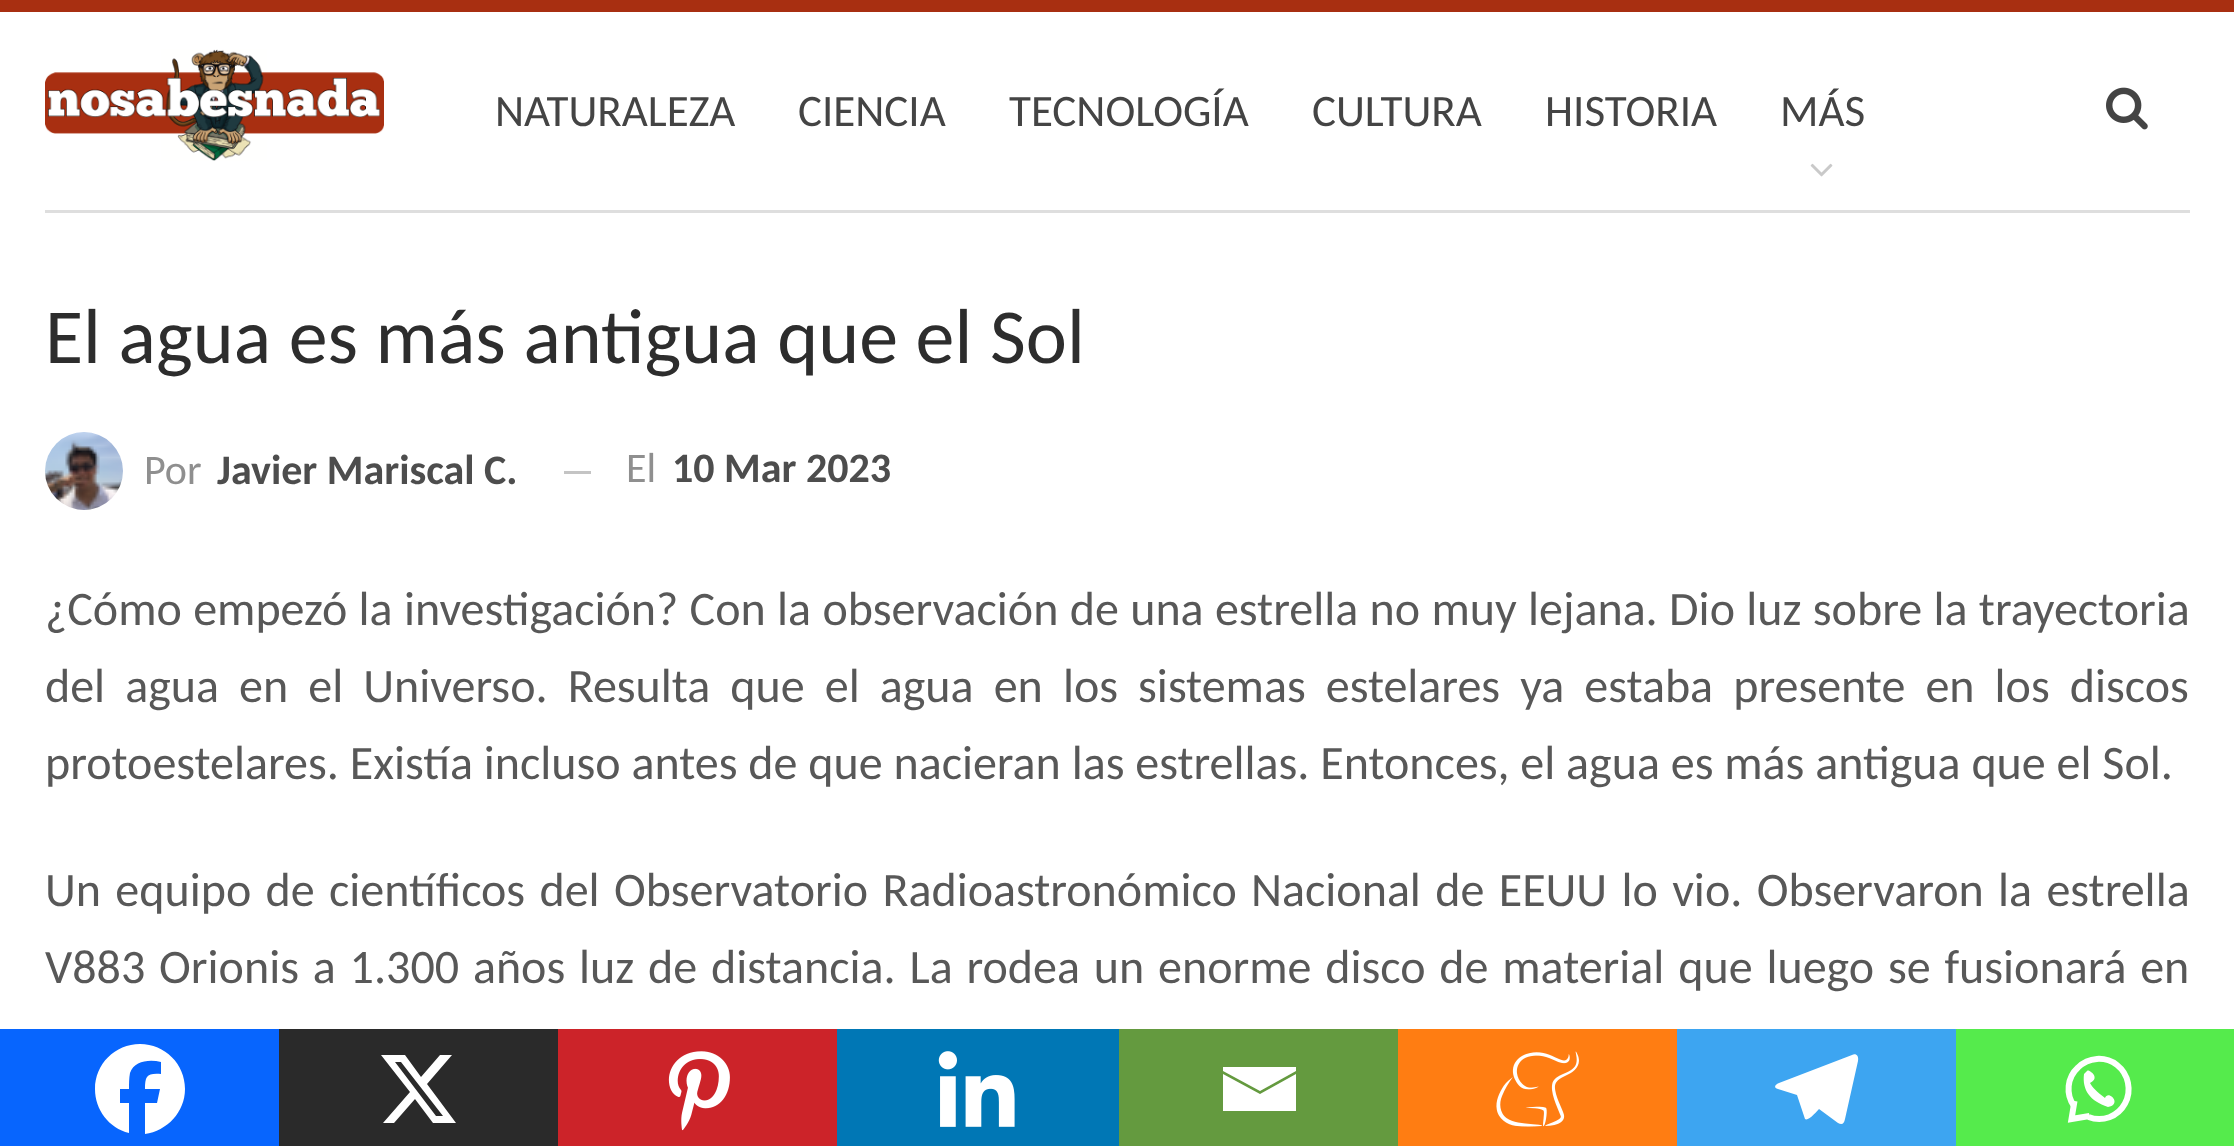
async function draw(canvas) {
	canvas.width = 2234;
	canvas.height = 1146;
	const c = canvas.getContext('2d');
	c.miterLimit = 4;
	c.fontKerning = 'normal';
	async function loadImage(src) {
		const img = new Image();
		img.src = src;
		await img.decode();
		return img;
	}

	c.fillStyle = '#a82f11';
	c.fillRect(0, 0, 2234, 1146);
	c.fillStyle = '#fff';
	c.fillRect(0, 12, 2234, 1017);
	c.fillStyle = '#dedede';
	c.fillRect(45, 210, 2145, 3);
	c.drawImage(await loadImage('img1.png'), 45, 49, 339, 112);
	c.font = '45px Carlito';
	c.fillStyle = '#444';
	for (const [text, x, y] of [
		['NATURALEZA', 495, 126],
		['CIENCIA', 798, 126],
		['TECNOLOGÍA', 1009, 126],
		['CULTURA', 1312, 126],
		['HISTORIA', 1545, 126],
		['MÁS', 1780, 126],
	]) {
		c.fillText(text, x, y);
	}
	c.drawImage(await loadImage('img2.png'), 1810, 163, 23, 14);
	c.drawImage(await loadImage('img3.png'), 2106, 87, 42, 43);
	c.font = '78px Carlito';
	c.fillStyle = '#2d2d2d';
	c.fillText('El agua es más antigua que el Sol', 45, 363);
	c.drawImage(await loadImage('img4.png'), 45, 432, 78, 78);
	c.font = '42px Carlito';
	c.fillStyle = '#8f8f8f';
	c.fillText('Por', 144, 484);
	c.font = 'bold 42px Carlito';
	c.fillStyle = '#4d4d4d';
	c.fillText('Javier Mariscal C.', 217, 484);
	c.fillStyle = '#c4c4c4';
	c.fillRect(564, 471, 27, 3);
	c.font = '42px Carlito';
	c.fillStyle = '#8f8f8f';
	c.fillText('El', 626, 482);
	c.font = 'bold 42px Carlito';
	c.fillStyle = '#4d4d4d';
	c.fillText('10 Mar 2023', 672, 482);
	c.wordSpacing = '0.5px';
	c.font = '48px Carlito';
	c.fillStyle = '#585858';
	c.fillText('¿Cómo empezó la investigación? Con la observación de una estrella no muy lejana. Dio luz sobre la trayectoria', 45, 625);
	c.wordSpacing = '9.25px';
	c.fillText('del agua en el Universo. Resulta que el agua en los sistemas estelares ya estaba presente en los discos', 45, 702);
	c.wordSpacing = '0px';
	c.fillText('protoestelares. Existía incluso antes de que nacieran las estrellas. Entonces, el agua es más antigua que el Sol.', 45, 779);
	c.wordSpacing = '3.5px';
	c.fillText('Un equipo de científicos del Observatorio Radioastronómico Nacional de EEUU lo vio. Observaron la estrella', 45, 906);
	c.wordSpacing = '3px';
	c.fillText('V883 Orionis a 1.300 años luz de distancia. La rodea un enorme disco de material que luego se fusionará en', 45, 983);
	c.fillStyle = '#0765fe';
	c.fillRect(0, 1029, 279, 117);
	c.fillStyle = '#fff';
	c.beginPath();
	c.moveTo(185, 1089);
	c.bezierCurveTo(185, 1064, 165, 1044, 140, 1044);
	c.bezierCurveTo(115, 1044, 95, 1064, 95, 1089);
	c.bezierCurveTo(95, 1110, 109, 1128, 129, 1133);
	c.lineTo(129, 1103);
	c.lineTo(120, 1103);
	c.lineTo(120, 1089);
	c.lineTo(129, 1089);
	c.bezierCurveTo(129, 1084, 129, 1078, 130, 1073);
	c.bezierCurveTo(134, 1061, 149, 1059, 161, 1062);
	c.lineTo(161, 1074);
	c.bezierCurveTo(147, 1073, 145, 1076, 145, 1089);
	c.lineTo(160, 1089);
	c.lineTo(157, 1103);
	c.lineTo(145, 1103);
	c.lineTo(145, 1134);
	c.bezierCurveTo(167, 1131, 185, 1112, 185, 1089);
	c.closePath();
	c.fill();
	c.fillStyle = '#2a2a2a';
	c.fillRect(279, 1029, 279, 117);
	c.fillStyle = '#fff';
	c.beginPath();
	c.moveTo(440, 1055);
	c.lineTo(452, 1055);
	c.lineTo(427, 1084);
	c.lineTo(456, 1123);
	c.lineTo(433, 1123);
	c.lineTo(415, 1099);
	c.lineTo(394, 1123);
	c.lineTo(383, 1123);
	c.lineTo(410, 1092);
	c.lineTo(381, 1055);
	c.lineTo(405, 1055);
	c.lineTo(421, 1077);
	c.closePath();
	c.moveTo(436, 1116);
	c.lineTo(443, 1116);
	c.lineTo(401, 1062);
	c.lineTo(395, 1062);
	c.closePath();
	c.fill();
	c.fillStyle = '#cc2329';
	c.fillRect(558, 1029, 279, 117);
	c.drawImage(await loadImage('img5.png'), 668, 1051, 62, 80);
	c.fillStyle = '#0077b5';
	c.fillRect(837, 1029, 282, 117);
	c.drawImage(await loadImage('img6.png'), 938, 1051, 77, 76);
	c.fillStyle = '#649a3f';
	c.fillRect(1119, 1029, 279, 117);
	c.fillStyle = '#fff';
	c.beginPath();
	c.moveTo(1220, 1067);
	c.lineTo(1296, 1067);
	c.lineTo(1296, 1071);
	c.lineTo(1260, 1091);
	c.lineTo(1223, 1071);
	c.lineTo(1223, 1067);
	c.moveTo(1223, 1074);
	c.lineTo(1260, 1094);
	c.lineTo(1296, 1074);
	c.lineTo(1296, 1111);
	c.lineTo(1223, 1111);
	c.lineTo(1223, 1074);
	c.fill();
	c.fillStyle = '#ff7d12';
	c.fillRect(1398, 1029, 279, 117);
	c.drawImage(await loadImage('img7.png'), 1496, 1051, 83, 76);
	c.fillStyle = '#3da5f1';
	c.fillRect(1677, 1029, 279, 117);
	c.fillStyle = '#fff';
	c.beginPath();
	c.moveTo(1852, 1055);
	c.lineTo(1779, 1083);
	c.bezierCurveTo(1774, 1085, 1774, 1088, 1778, 1089);
	c.lineTo(1797, 1095);
	c.lineTo(1805, 1119);
	c.bezierCurveTo(1808, 1122, 1818, 1110, 1819, 1109);
	c.lineTo(1838, 1123);
	c.bezierCurveTo(1842, 1125, 1844, 1124, 1845, 1119);
	c.lineTo(1858, 1061);
	c.bezierCurveTo(1859, 1056, 1856, 1053, 1852, 1055);
	c.closePath();
	c.fill();
	c.fillStyle = '#55eb4c';
	c.fillRect(1956, 1029, 278, 117);
	c.beginPath();
	c.moveTo(2088.5, 1117);
	c.bezierCurveTo(2102.5, 1122.5, 2118, 1116.5, 2125, 1103.5);
	c.bezierCurveTo(2132, 1090.5, 2128.5, 1074, 2117, 1065);
	c.bezierCurveTo(2105, 1056, 2088.5, 1057, 2078, 1067.5);
	c.bezierCurveTo(2067, 1077.5, 2065.5, 1094, 2074, 1106);
	c.strokeStyle = '#fff';
	c.lineWidth = 6;
	c.stroke();
	c.beginPath();
	c.moveTo(2074.5, 1101);
	c.lineTo(2071.5, 1119);
	c.lineTo(2089.5, 1116);
	c.stroke();
	c.fillStyle = '#fff';
	c.beginPath();
	c.moveTo(2084, 1074);
	c.bezierCurveTo(2082, 1090, 2090, 1101, 2108, 1107);
	c.bezierCurveTo(2123, 1104, 2108, 1089, 2105, 1098);
	c.bezierCurveTo(2097, 1092, 2092, 1087, 2090, 1083);
	c.bezierCurveTo(2102, 1077, 2087, 1068, 2087, 1071);
	c.fill();
}

draw(document.querySelector('canvas'));
